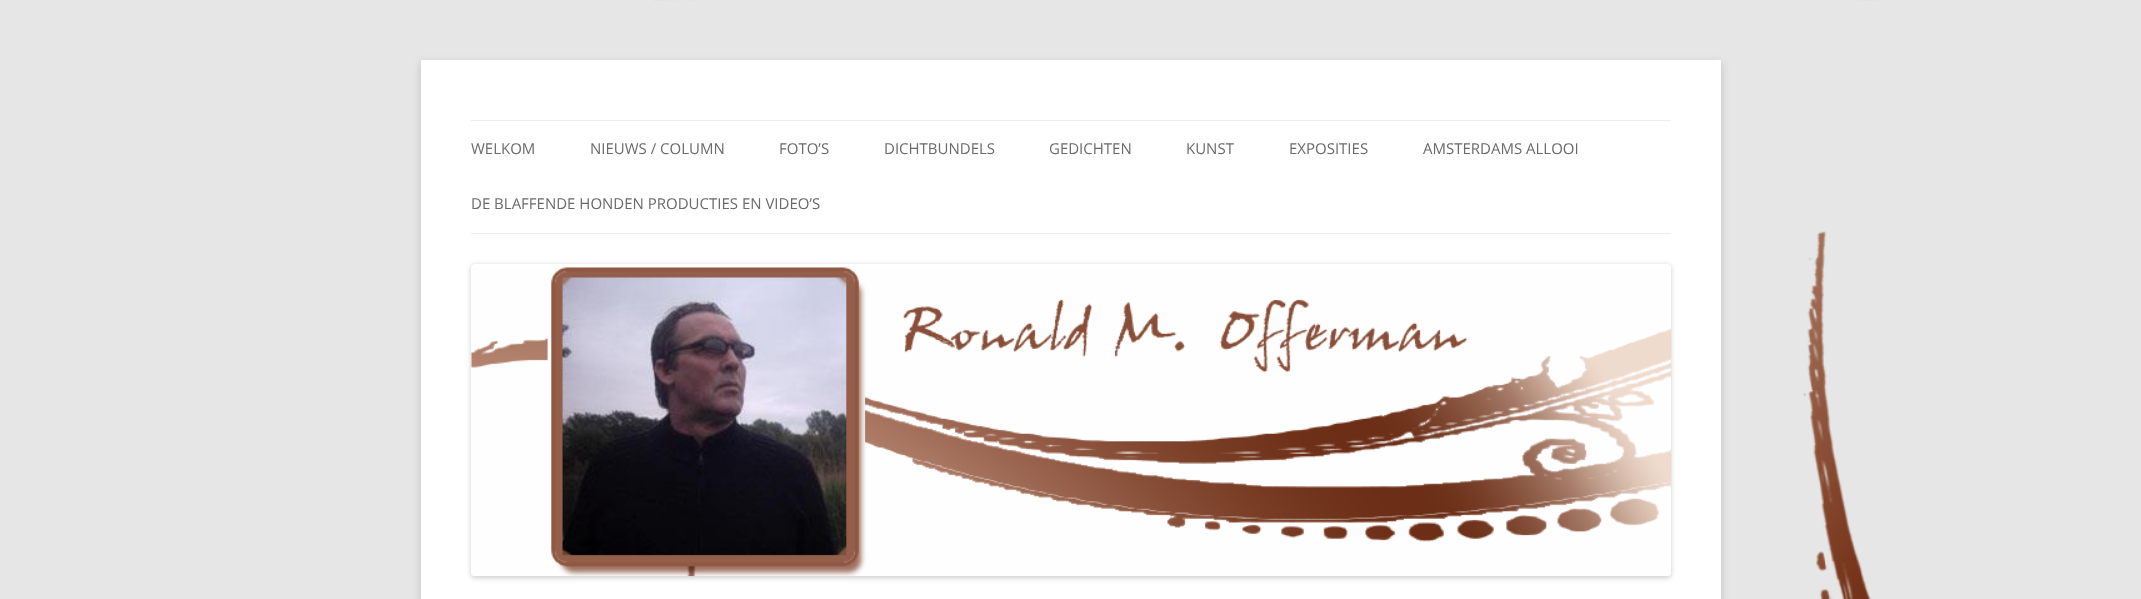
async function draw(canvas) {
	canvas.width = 2141;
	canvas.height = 599;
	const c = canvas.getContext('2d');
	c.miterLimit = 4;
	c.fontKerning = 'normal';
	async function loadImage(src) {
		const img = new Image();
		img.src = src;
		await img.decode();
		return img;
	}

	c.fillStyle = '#e6e6e6';
	c.fillRect(0, 0, 2141, 599);
	c.drawImage(await loadImage('img1.png'), 653, 0, 1258, 599);
	c.fillStyle = '#6464644d';
	c.filter = 'blur(4px)';
	c.beginPath();
	c.rect(421, 63, 1300, 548);
	c.fill();
	c.filter = 'none';
	for (const [x, y, w, h, color] of [
		[421, 60, 1300, 539, '#fff'],
		[471, 120, 1200, 1, '#ededed'],
		[471, 233, 1200, 1, '#ededed'],
	]) {
		c.fillStyle = color;
		c.fillRect(x, y, w, h);
	}
	c.font = '15px Open Sans';
	c.fillStyle = '#6a6a6a';
	for (const [text, x, y] of [
		['WELKOM', 471, 154],
		['NIEUWS / COLUMN', 590, 154],
		['FOTO’S', 779, 154],
		['DICHTBUNDELS', 884, 154],
		['GEDICHTEN', 1049, 154],
		['KUNST', 1186, 154],
		['EXPOSITIES', 1289, 154],
		['AMSTERDAMS ALLOOI', 1423, 154],
		['DE BLAFFENDE HONDEN PRODUCTIES EN VIDEO’S', 471, 209],
	]) {
		c.fillText(text, x, y);
	}
	c.save();
	c.beginPath();
	c.moveTo(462, 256);
	c.lineTo(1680, 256);
	c.lineTo(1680, 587);
	c.lineTo(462, 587);
	c.closePath();
	c.moveTo(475, 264);
	c.lineTo(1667, 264);
	c.bezierCurveTo(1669, 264, 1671, 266, 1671, 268);
	c.lineTo(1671, 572);
	c.bezierCurveTo(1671, 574, 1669, 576, 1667, 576);
	c.lineTo(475, 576);
	c.bezierCurveTo(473, 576, 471, 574, 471, 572);
	c.lineTo(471, 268);
	c.bezierCurveTo(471, 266, 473, 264, 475, 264);
	c.closePath();
	c.clip('evenodd');
	c.fillStyle = '#00000033';
	c.filter = 'blur(2.5px)';
	c.beginPath();
	c.roundRect(471, 265, 1200, 313, 4);
	c.fill();
	c.filter = 'none';
	c.restore();
	c.drawImage(await loadImage('img2.png'), 471, 267, 1200, 310);
}

draw(document.querySelector('canvas'));
